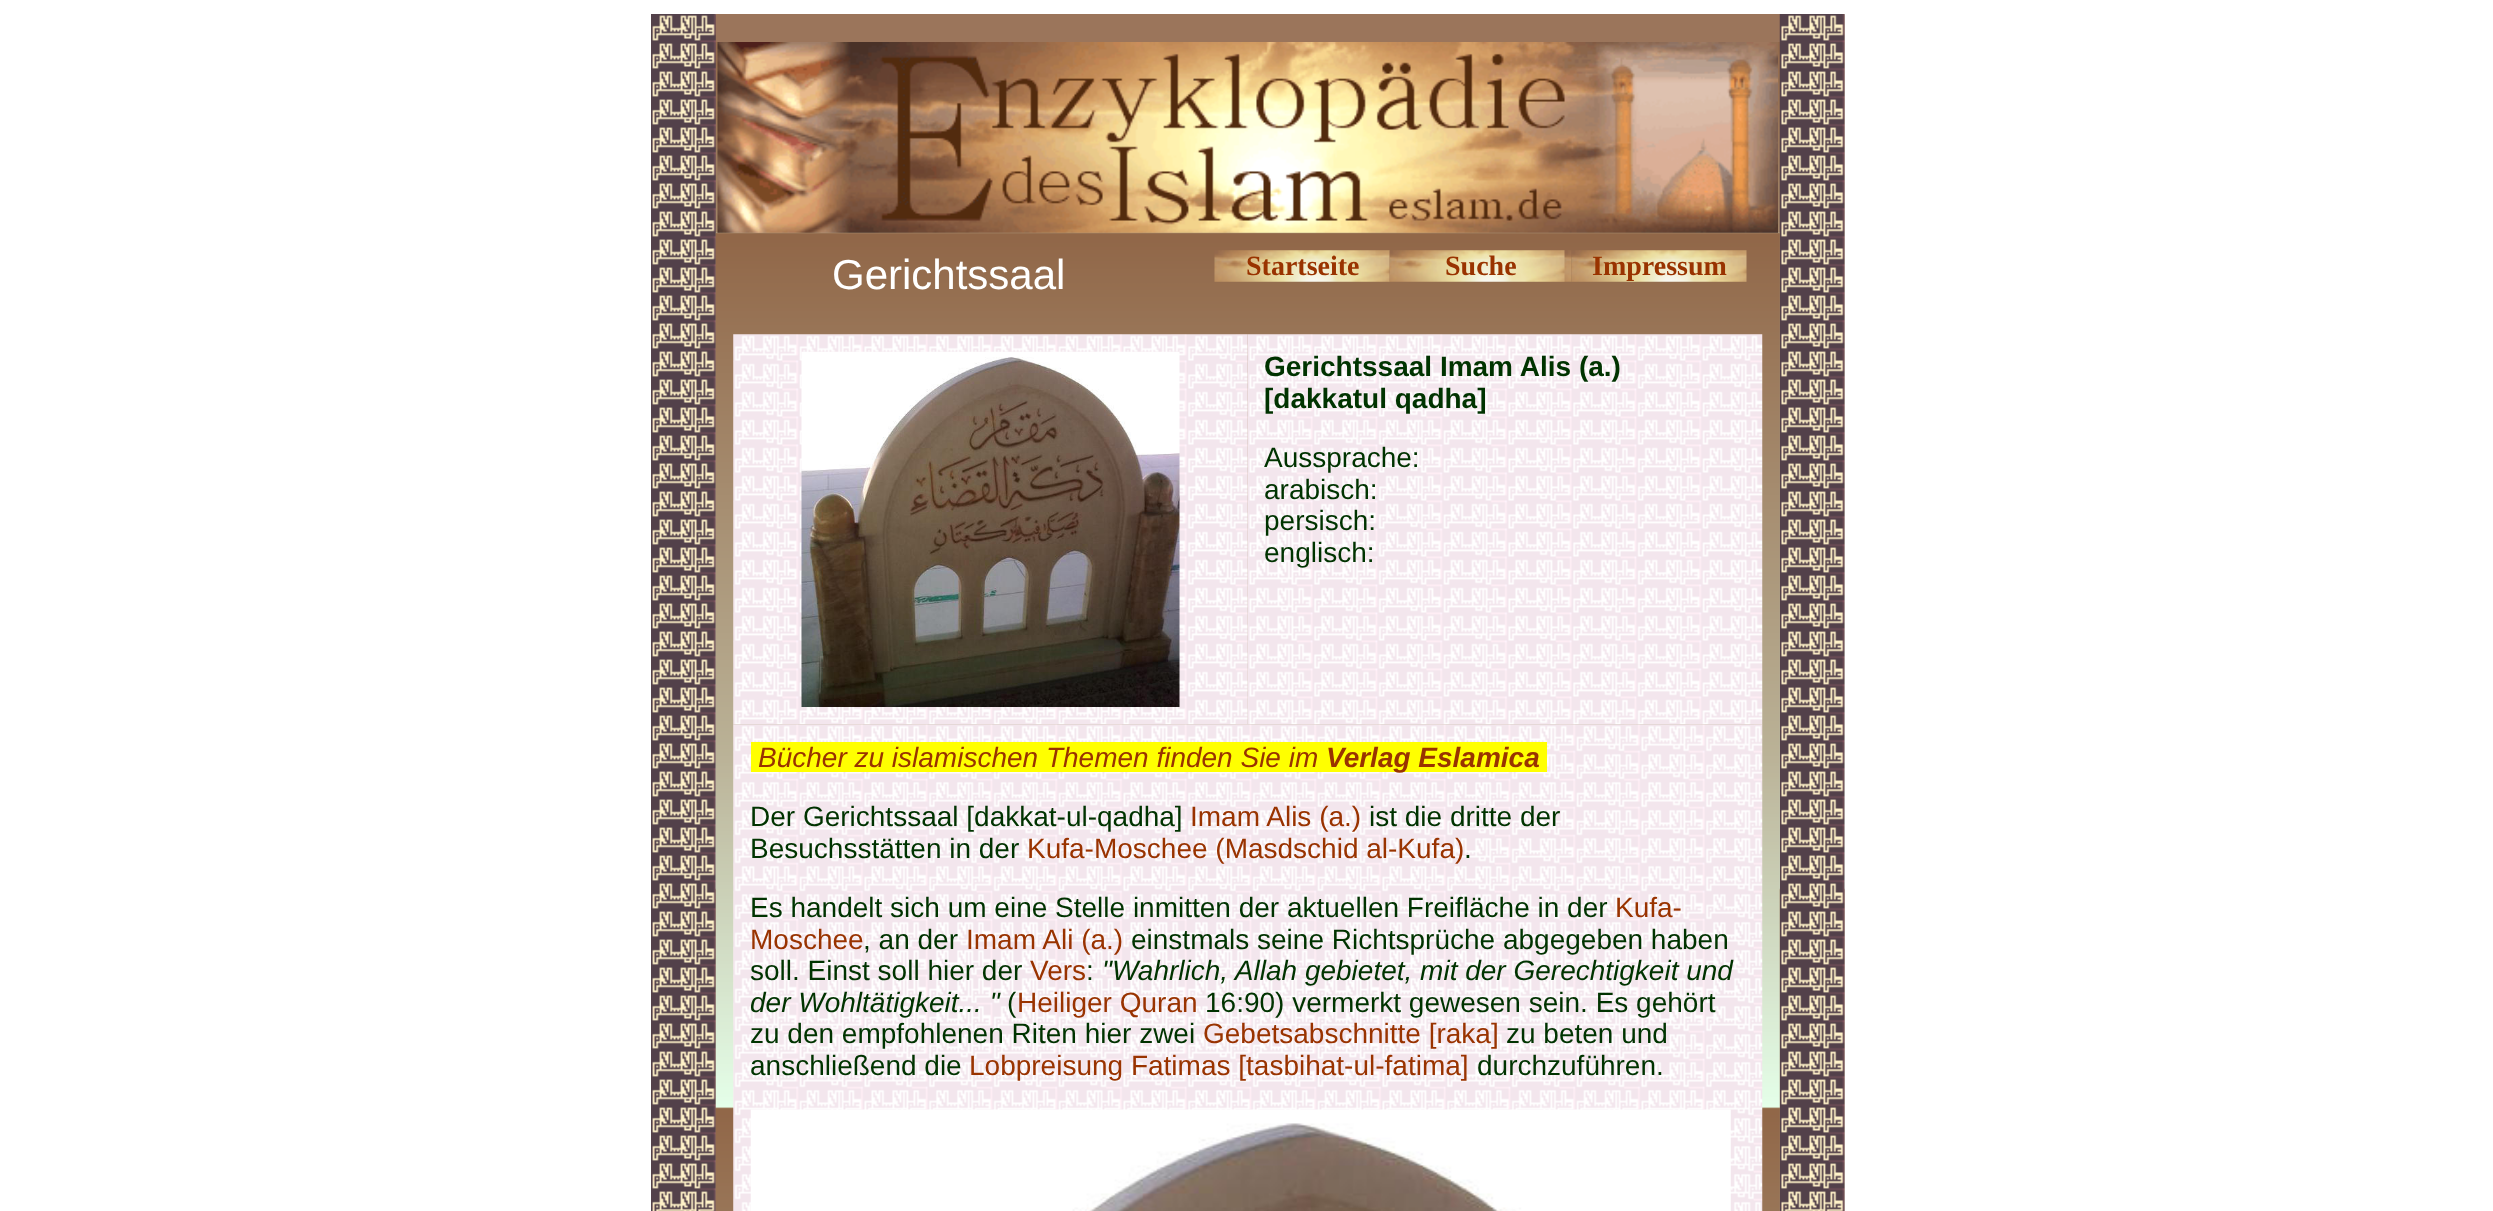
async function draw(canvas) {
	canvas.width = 2493;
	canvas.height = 1211;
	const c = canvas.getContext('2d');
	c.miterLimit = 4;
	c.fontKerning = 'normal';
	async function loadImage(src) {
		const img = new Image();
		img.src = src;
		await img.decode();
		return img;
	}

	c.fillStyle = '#fff';
	c.fillRect(0, 0, 2493, 1211);
	c.drawImage(await loadImage('img1.png'), 715, 14, 1130, 1197);
	c.drawImage(await loadImage('img2.png'), 651, 14, 65, 28);
	c.fillStyle = '#9b755b';
	c.fillRect(716, 14, 1064, 28);
	c.drawImage(await loadImage('img3.png'), 1779, 14, 66, 28);
	c.drawImage(await loadImage('img4.png'), 651, 42, 65, 1169);
	c.drawImage(await loadImage('img6.png'), 1779, 42, 66, 1169);
	c.drawImage(await loadImage('img7.png'), 715, 232, 1065, 979);
	c.drawImage(await loadImage('img5.png'), 717, 42, 1061, 191);
	c.font = '42px Liberation Sans';
	c.fillStyle = '#fff';
	c.fillText('Gerichtssaal', 832, 289);
	c.drawImage(await loadImage('img8.png'), 1214, 250, 176, 32);
	c.font = 'bold 28px Liberation Serif';
	c.fillStyle = '#930';
	c.fillText('Startseite', 1246, 275);
	c.drawImage(await loadImage('img9.png'), 1389, 250, 183, 32);
	c.fillText('Suche', 1445, 275);
	c.drawImage(await loadImage('img10.png'), 1571, 250, 176, 32);
	c.fillText('Impressum', 1592, 275);
	c.drawImage(await loadImage('img11.png'), 733, 334, 515, 391);
	c.drawImage(await loadImage('img12.png'), 801, 351, 379, 356);
	c.drawImage(await loadImage('img13.png'), 1247, 334, 516, 391);
	c.font = 'bold 28px Liberation Sans';
	c.fillStyle = '#030';
	c.fillText('Gerichtssaal Imam Alis (a.)', 1264, 376);
	c.fillText('[dakkatul qadha]', 1264, 408);
	c.font = '28px Liberation Sans';
	for (const [text, x, y] of [
		['Aussprache:', 1264, 467],
		['arabisch:', 1264, 499],
		['persisch:', 1264, 530],
		['englisch:', 1264, 562],
	]) {
		c.fillText(text, x, y);
	}
	c.drawImage(await loadImage('img14.png'), 733, 724, 1030, 487);
	c.fillStyle = '#ff0';
	c.fillRect(751, 742, 796, 30);
	c.font = 'italic 28px Liberation Sans';
	c.fillStyle = '#930';
	c.fillText('Bücher zu islamischen Themen finden Sie im', 758, 767);
	c.font = 'italic bold 28px Liberation Sans';
	c.fillText('Verlag Eslamica', 1326, 767);
	c.font = '28px Liberation Sans';
	c.fillStyle = '#030';
	c.fillText('Der Gerichtssaal [dakkat-ul-qadha]', 750, 826);
	c.fillStyle = '#930';
	c.fillText('Imam Alis (a.)', 1190, 826);
	c.fillStyle = '#030';
	c.fillText('ist die dritte der', 1369, 826);
	c.fillText('Besuchsstätten in der', 750, 858);
	c.fillStyle = '#930';
	c.fillText('Kufa-Moschee (Masdschid al-Kufa)', 1027, 858);
	c.fillStyle = '#030';
	c.fillText('.', 1464, 858);
	c.fillText('Es handelt sich um eine Stelle inmitten der aktuellen Freifläche in der', 750, 917);
	c.fillStyle = '#930';
	c.fillText('Kufa-', 1615, 917);
	c.fillText('Moschee', 750, 949);
	c.fillStyle = '#030';
	c.fillText(', an der', 863, 949);
	c.fillStyle = '#930';
	c.fillText('Imam Ali (a.)', 966, 949);
	c.fillStyle = '#030';
	c.fillText('einstmals seine Richtsprüche abgegeben haben', 1131, 949);
	c.fillText('soll. Einst soll hier der', 750, 980);
	c.fillStyle = '#930';
	c.fillText('Vers', 1030, 980);
	c.fillStyle = '#030';
	c.fillText(':', 1086, 980);
	c.font = 'italic 28px Liberation Sans';
	c.fillText('"Wahrlich, Allah gebietet, mit der Gerechtigkeit und', 1102, 980);
	c.fillText('der Wohltätigkeit... "', 750, 1012);
	c.font = '28px Liberation Sans';
	c.fillText('(', 1007, 1012);
	c.fillStyle = '#930';
	c.fillText('Heiliger Quran', 1017, 1012);
	c.fillStyle = '#030';
	c.fillText('16:90) vermerkt gewesen sein. Es gehört', 1205, 1012);
	c.fillText('zu den empfohlenen Riten hier zwei', 750, 1043);
	c.fillStyle = '#930';
	c.fillText('Gebetsabschnitte [raka]', 1203, 1043);
	c.fillStyle = '#030';
	c.fillText('zu beten und', 1506, 1043);
	c.fillText('anschließend die', 750, 1075);
	c.fillStyle = '#930';
	c.fillText('Lobpreisung Fatimas [tasbihat-ul-fatima]', 969, 1075);
	c.fillStyle = '#030';
	c.fillText('durchzuführen.', 1477, 1075);
	c.drawImage(await loadImage('img15.png'), 750, 1109, 981, 102);
}

draw(document.querySelector('canvas'));
